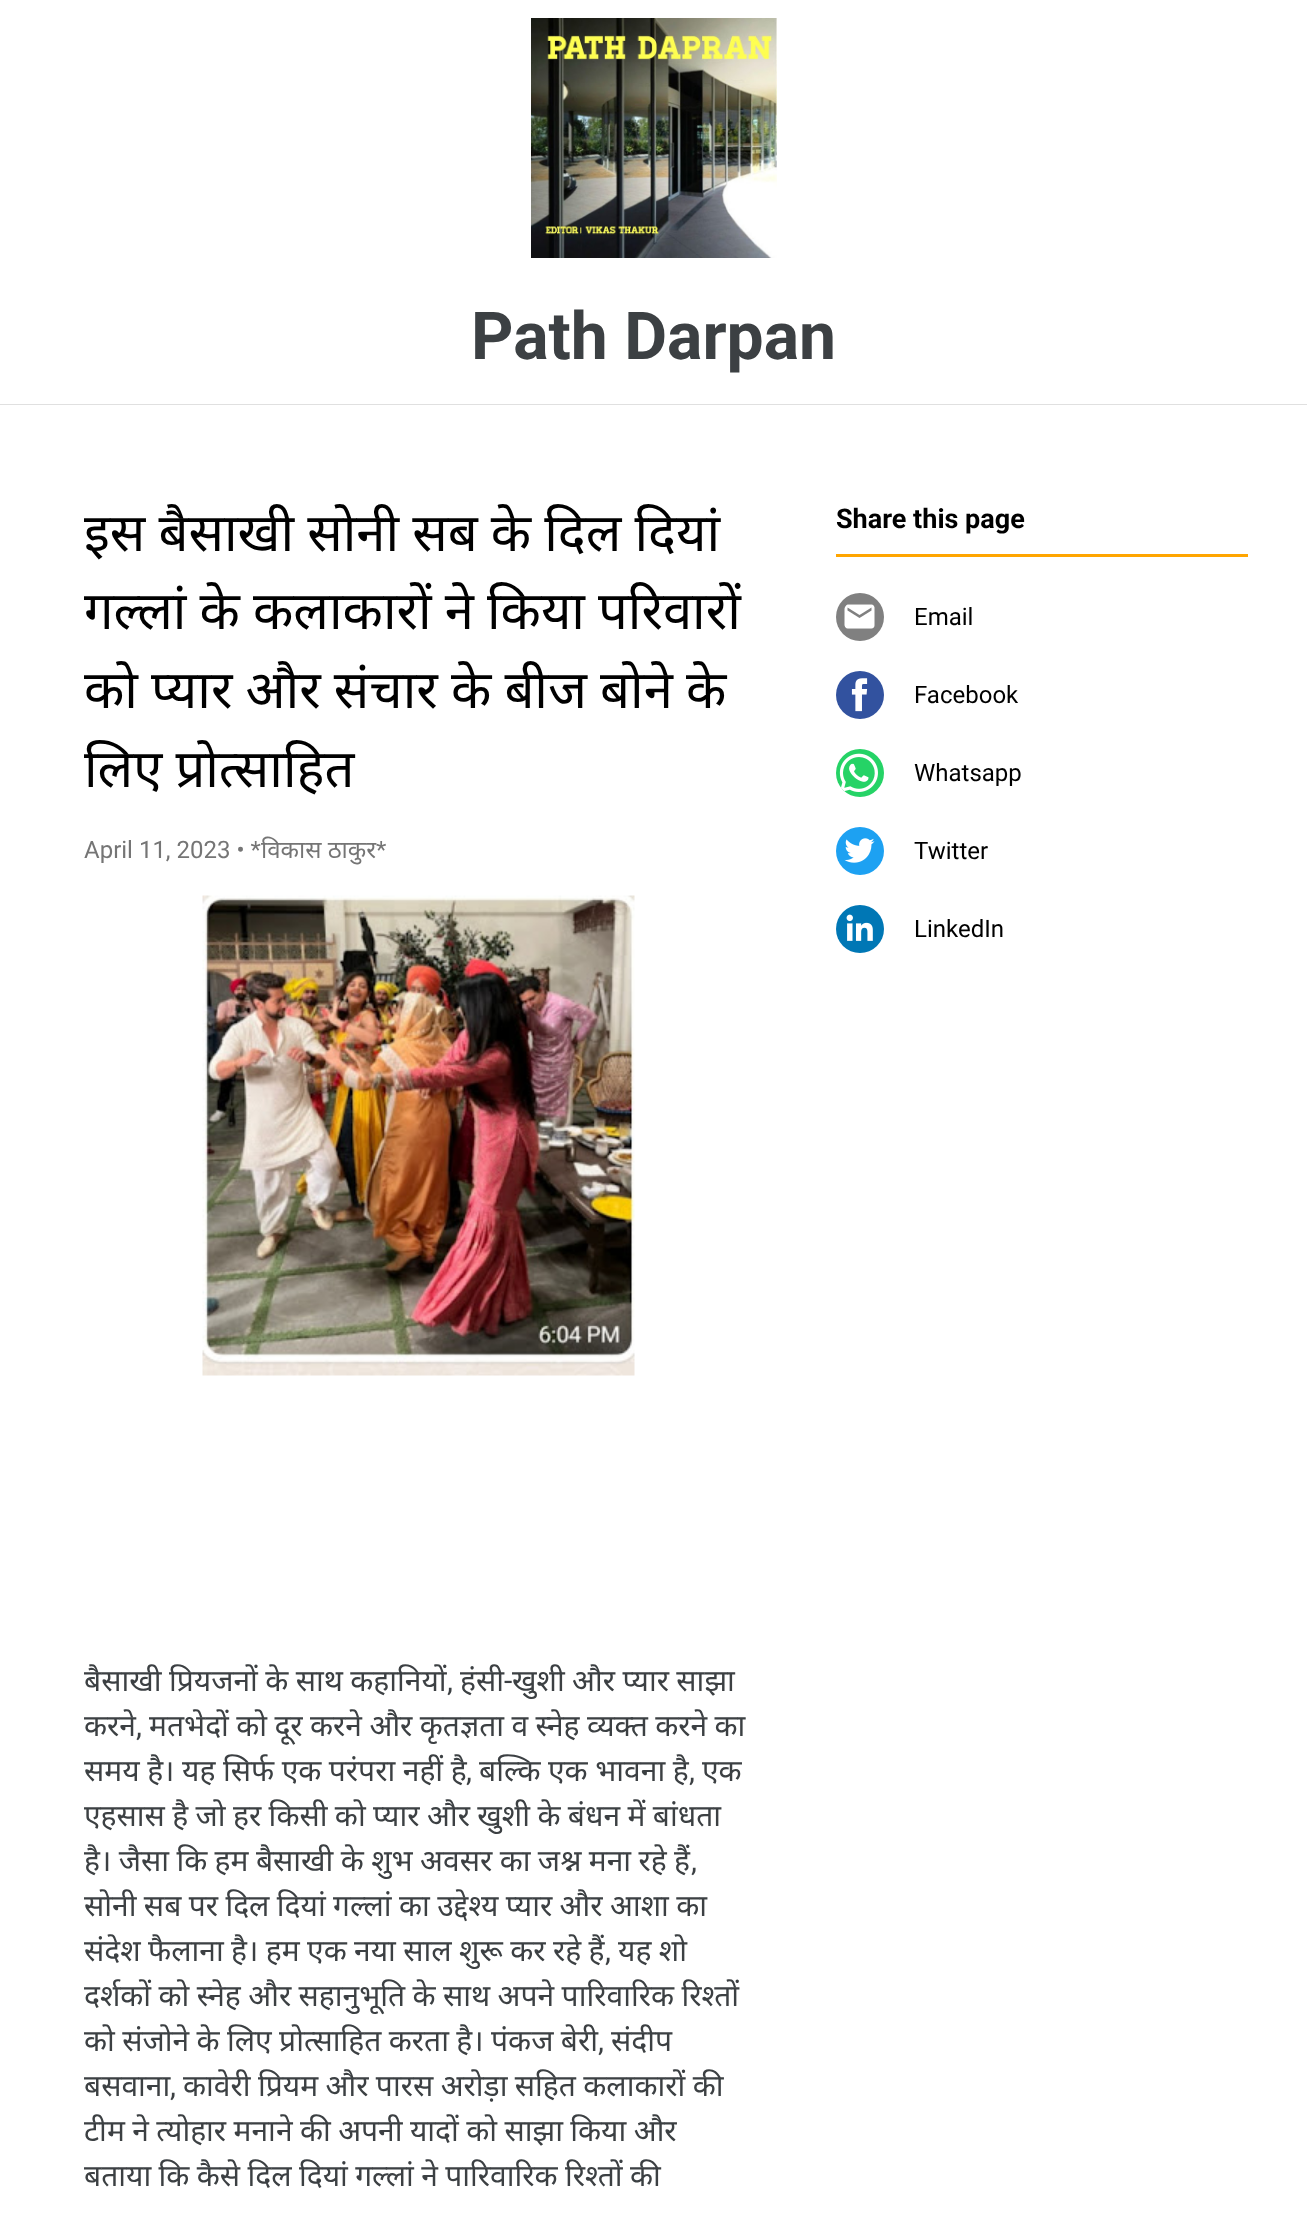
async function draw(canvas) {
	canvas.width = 1307;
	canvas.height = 2216;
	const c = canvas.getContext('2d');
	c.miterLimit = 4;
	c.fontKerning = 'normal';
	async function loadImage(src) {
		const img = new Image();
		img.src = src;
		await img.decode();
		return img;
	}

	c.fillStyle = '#fff';
	c.fillRect(0, 0, 1307, 2216);
	c.fillStyle = '#e0e0e0';
	c.fillRect(0, 404, 1307, 1);
	c.drawImage(await loadImage('img1.png'), 531, 18, 246, 240);
	c.font = 'bold 66px Roboto';
	c.fillStyle = '#3c4043';
	c.fillText('Path Darpan', 471, 359);
	c.wordSpacing = '-0.5px';
	c.font = '52.5px Noto Sans';
	c.fillStyle = '#000';
	c.fillText('इस बैसाखी सोनी सब के दिल दियां', 84, 551);
	c.fillText('गल्लां के कलाकारों ने किया', 84, 629);
	c.wordSpacing = '0px';
	c.fillText('परिवारों', 598, 629);
	c.save();
	c.beginPath();
	c.rect(84, 495, 668, 315);
	c.clip();
	c.wordSpacing = '-0.5px';
	c.fillText('को प्यार और संचार के बीज बोने के', 84, 708);
	c.restore();
	c.wordSpacing = '-0.5px';
	c.fillText('लिए प्रोत्साहित', 84, 787);
	c.wordSpacing = '0px';
	c.font = '24px Roboto';
	c.fillStyle = '#757575';
	c.fillText('April 11, 2023 • *', 84, 858);
	c.font = '24px Noto Sans';
	c.fillText('विकास ठाकुर', 261, 858);
	c.font = '24px Roboto';
	c.fillText('*', 376, 858);
	c.drawImage(await loadImage('img2.png'), 202, 895, 433, 481);
	c.wordSpacing = '-0.4px';
	c.font = '30px Noto Sans';
	c.fillStyle = '#3c4043';
	c.fillText('बैसाखी प्रियजनों के साथ कहानियों', 84, 1691);
	c.wordSpacing = '0px';
	c.fillText('हंसी', 460, 1691);
	c.font = '30px Roboto';
	c.fillText('-', 504, 1691);
	c.wordSpacing = '-0.4px';
	c.font = '30px Noto Sans';
	c.fillText('खुशी और प्यार साझा', 512, 1691);
	c.wordSpacing = '0px';
	c.font = '30px Roboto';
	c.fillText(',', 447, 1691);
	c.font = '30px Noto Sans';
	c.fillText('करने', 84, 1736);
	c.font = '30px Roboto';
	c.fillText(',', 136, 1736);
	c.wordSpacing = '-0.4px';
	c.font = '30px Noto Sans';
	c.fillText('मतभेदों को दूर करने और कृतज्ञता व स्नेह व्यक्त करने का', 149, 1736);
	c.wordSpacing = '-0.25px';
	c.fillText('समय है। यह सिर्फ एक परंपरा नहीं है', 84, 1781);
	c.wordSpacing = '0px';
	c.font = '30px Roboto';
	c.fillText(',', 466, 1781);
	c.wordSpacing = '-0.25px';
	c.font = '30px Noto Sans';
	c.fillText('बल्कि एक भावना है', 479, 1781);
	c.wordSpacing = '0px';
	c.font = '30px Roboto';
	c.fillText(',', 689, 1781);
	c.font = '30px Noto Sans';
	c.fillText('एक', 702, 1781);
	c.wordSpacing = '-0.4px';
	c.fillText('एहसास है जो हर किसी को प्यार और खुशी के बंधन में बांधता', 84, 1826);
	c.fillText('है। जैसा कि हम बैसाखी के शुभ अवसर का जश्न मना रहे हैं', 84, 1871);
	c.wordSpacing = '0px';
	c.font = '30px Roboto';
	c.fillText(',', 691, 1871);
	c.wordSpacing = '-0.4px';
	c.font = '30px Noto Sans';
	c.fillText('सोनी सब पर दिल दियां गल्लां का उद्देश्य प्यार और आशा का', 84, 1916);
	c.fillText('संदेश फैलाना है। हम एक नया साल शुरू कर रहे हैं', 84, 1961);
	c.wordSpacing = '0px';
	c.font = '30px Roboto';
	c.fillText(',', 605, 1961);
	c.wordSpacing = '-0.4px';
	c.font = '30px Noto Sans';
	for (const [text, x, y] of [
		['यह शो', 618, 1961],
		['दर्शकों को स्नेह और सहानुभूति के साथ अपने पारिवारिक रिश्तों', 84, 2006],
		['को संजोने के लिए प्रोत्साहित करता है। पंकज बेरी', 84, 2051],
	]) {
		c.fillText(text, x, y);
	}
	c.wordSpacing = '0px';
	c.font = '30px Roboto';
	c.fillText(',', 598, 2051);
	c.font = '30px Noto Sans';
	c.fillText('संदीप', 611, 2051);
	c.fillText('बसवाना', 84, 2096);
	c.font = '30px Roboto';
	c.fillText(',', 170, 2096);
	c.wordSpacing = '-0.4px';
	c.font = '30px Noto Sans';
	for (const [text, x, y] of [
		['कावेरी प्रियम और पारस अरोड़ा सहित कलाकारों की', 183, 2096],
		['टीम ने त्योहार मनाने की अपनी यादों को साझा किया और', 84, 2141],
		['बताया कि कैसे दिल दियां गल्लां ने पारिवारिक रिश्तों की', 84, 2186],
	]) {
		c.fillText(text, x, y);
	}
	c.fillStyle = '#ffa500';
	c.fillRect(836, 554, 412, 3);
	c.wordSpacing = '0px';
	c.font = 'bold 27px Roboto';
	c.fillStyle = '#000';
	c.fillText('Share this page', 836, 528);
	c.fillStyle = '#808080';
	c.beginPath();
	c.arc(860, 617, 24, 0, 2 * Math.PI);
	c.fill();
	c.drawImage(await loadImage('img3.png'), 844, 604, 31, 25);
	c.font = '24px Roboto';
	c.fillStyle = '#000';
	c.fillText('Email', 914, 625);
	c.fillStyle = '#32529f';
	c.beginPath();
	c.arc(860, 695, 24, 0, 2 * Math.PI);
	c.fill();
	c.drawImage(await loadImage('img4.png'), 851, 678, 17, 34);
	c.fillStyle = '#000';
	c.fillText('Facebook', 914, 703);
	c.fillStyle = '#25d366';
	c.beginPath();
	c.arc(860, 773, 24, 0, 2 * Math.PI);
	c.fill();
	c.drawImage(await loadImage('img5.png'), 839, 753, 39, 39);
	c.fillStyle = '#000';
	c.fillText('Whatsapp', 914, 781);
	c.fillStyle = '#1da1f2';
	c.beginPath();
	c.arc(860, 851, 24, 0, 2 * Math.PI);
	c.fill();
	c.drawImage(await loadImage('img6.png'), 844, 838, 31, 25);
	c.fillStyle = '#000';
	c.fillText('Twitter', 914, 859);
	c.fillStyle = '#0077b5';
	c.beginPath();
	c.arc(860, 929, 24, 0, 2 * Math.PI);
	c.fill();
	c.drawImage(await loadImage('img7.png'), 846, 914, 27, 27);
	c.fillStyle = '#000';
	c.fillText('LinkedIn', 914, 937);
}

draw(document.querySelector('canvas'));
